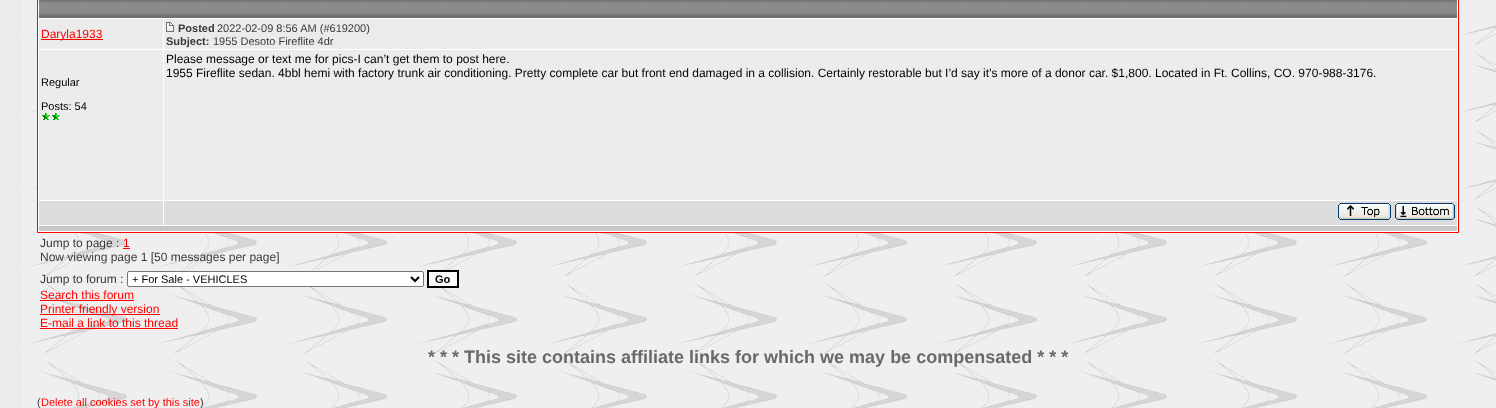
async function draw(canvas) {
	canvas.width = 1496;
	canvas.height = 408;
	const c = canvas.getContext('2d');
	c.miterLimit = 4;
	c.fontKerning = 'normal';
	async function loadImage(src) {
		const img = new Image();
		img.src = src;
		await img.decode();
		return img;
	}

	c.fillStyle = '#ececec';
	c.fillRect(0, 0, 1496, 408);
	c.drawImage(await loadImage('img1.png'), 22, 0, 1474, 408);
	c.fillStyle = '#fff';
	c.beginPath();
	c.rect(37.5, -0.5, 1421, 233);
	c.fill();
	c.strokeStyle = '#f00';
	c.stroke();
	c.drawImage(await loadImage('img2.png'), 39, 0, 1418, 18);
	c.fillStyle = '#ebebeb';
	c.fillRect(39, 19, 124, 30);
	c.fillStyle = '#f00';
	c.fillRect(41, 39, 62, 1);
	c.font = '12px Liberation Sans';
	c.fillText('Daryla1933', 41, 38);
	c.fillStyle = '#ebebeb';
	c.fillRect(164, 19, 1293, 30);
	c.drawImage(await loadImage('img3.png'), 166, 22, 8, 10);
	c.font = 'bold 11px Liberation Sans';
	c.fillStyle = '#3a3a3a';
	c.fillText('Posted', 178, 32);
	c.font = '11px Liberation Sans';
	c.fillText('2022-02-09 8:56 AM (#619200)', 217, 32);
	c.font = 'bold 11px Liberation Sans';
	c.fillText('Subject:', 166, 45);
	c.font = '11px Liberation Sans';
	c.fillText('1955 Desoto Fireflite 4dr', 213, 45);
	c.fillStyle = '#ececec';
	c.fillRect(164, 50, 1293, 150);
	c.font = '12px Liberation Sans';
	c.fillStyle = '#000';
	c.fillText('Please message or text me for pics-I can’t get them to post here.', 166, 63);
	c.fillText('1955 Fireflite sedan. 4bbl hemi with factory trunk air conditioning. Pretty complete car but front end damaged in a collision. Certainly restorable but I’d say it’s more of a donor car. $1,800. Located in Ft. Collins, CO. 970-988-3176.', 166, 77);
	c.fillStyle = '#ececec';
	c.fillRect(39, 50, 124, 150);
	c.font = '11px Liberation Sans';
	c.fillStyle = '#000';
	c.fillText('Regular', 41, 86);
	c.fillText('Posts: 54', 41, 110);
	c.drawImage(await loadImage('img4.png'), 42, 113, 8, 7);
	c.drawImage(await loadImage('img4.png'), 52, 113, 8, 7);
	c.fillStyle = '#ddd';
	c.fillRect(39, 201, 124, 24);
	c.fillRect(164, 201, 1293, 24);
	c.drawImage(await loadImage('img5.png'), 1338, 203, 53, 17);
	c.drawImage(await loadImage('img6.png'), 1395, 203, 60, 17);
	c.fillStyle = '#c7c7c7';
	c.fillRect(39, 226, 1418, 5);
	c.font = '12px Liberation Sans';
	c.fillStyle = '#3a3a3a';
	c.fillText('Jump to page :', 40, 247);
	c.fillStyle = '#f00';
	c.fillText('1', 123, 247);
	c.fillRect(123, 248, 7, 1);
	c.fillStyle = '#3a3a3a';
	c.fillText('Now viewing page 1 [50 messages per page]', 40, 261);
	c.fillText('Jump to forum :', 40, 283);
	c.fillStyle = '#fff';
	c.beginPath();
	c.roundRect(127.5, 271.5, 296, 15, 1.5);
	c.fill();
	c.strokeStyle = '#767676';
	c.stroke();
	c.beginPath();
	c.moveTo(411, 277);
	c.lineTo(415, 281);
	c.lineTo(419, 277);
	c.strokeStyle = '#000';
	c.lineWidth = 2;
	c.stroke();
	c.font = '11px Liberation Sans';
	c.fillStyle = '#000';
	c.fillText('+ For Sale - VEHICLES', 132, 283);
	c.fillStyle = '#fafafa';
	c.beginPath();
	c.rect(428, 271, 30, 16);
	c.fill();
	c.stroke();
	c.font = 'bold 11px Liberation Sans';
	c.fillStyle = '#000';
	c.fillText('Go', 435, 283);
	c.font = '12px Liberation Sans';
	c.fillStyle = '#f00';
	c.fillText('Search this forum', 40, 299);
	c.fillRect(40, 300, 94, 1);
	c.fillRect(40, 314, 120, 1);
	c.fillText('Printer friendly version', 40, 313);
	c.fillText('E-mail a link to this thread', 40, 327);
	c.fillRect(40, 328, 138, 1);
	c.font = 'bold 18px Liberation Sans';
	c.fillStyle = '#696969';
	c.fillText('* * * This site contains affiliate links for which we may be compensated * * *', 428, 363);
	c.font = '11px Liberation Sans';
	c.fillStyle = '#3a3a3a';
	c.fillText('(', 37, 406);
	c.fillStyle = '#f00';
	c.fillText('Delete all cookies set by this site', 41, 406);
	c.fillStyle = '#3a3a3a';
	c.fillText(')', 200, 406);
}

draw(document.querySelector('canvas'));
